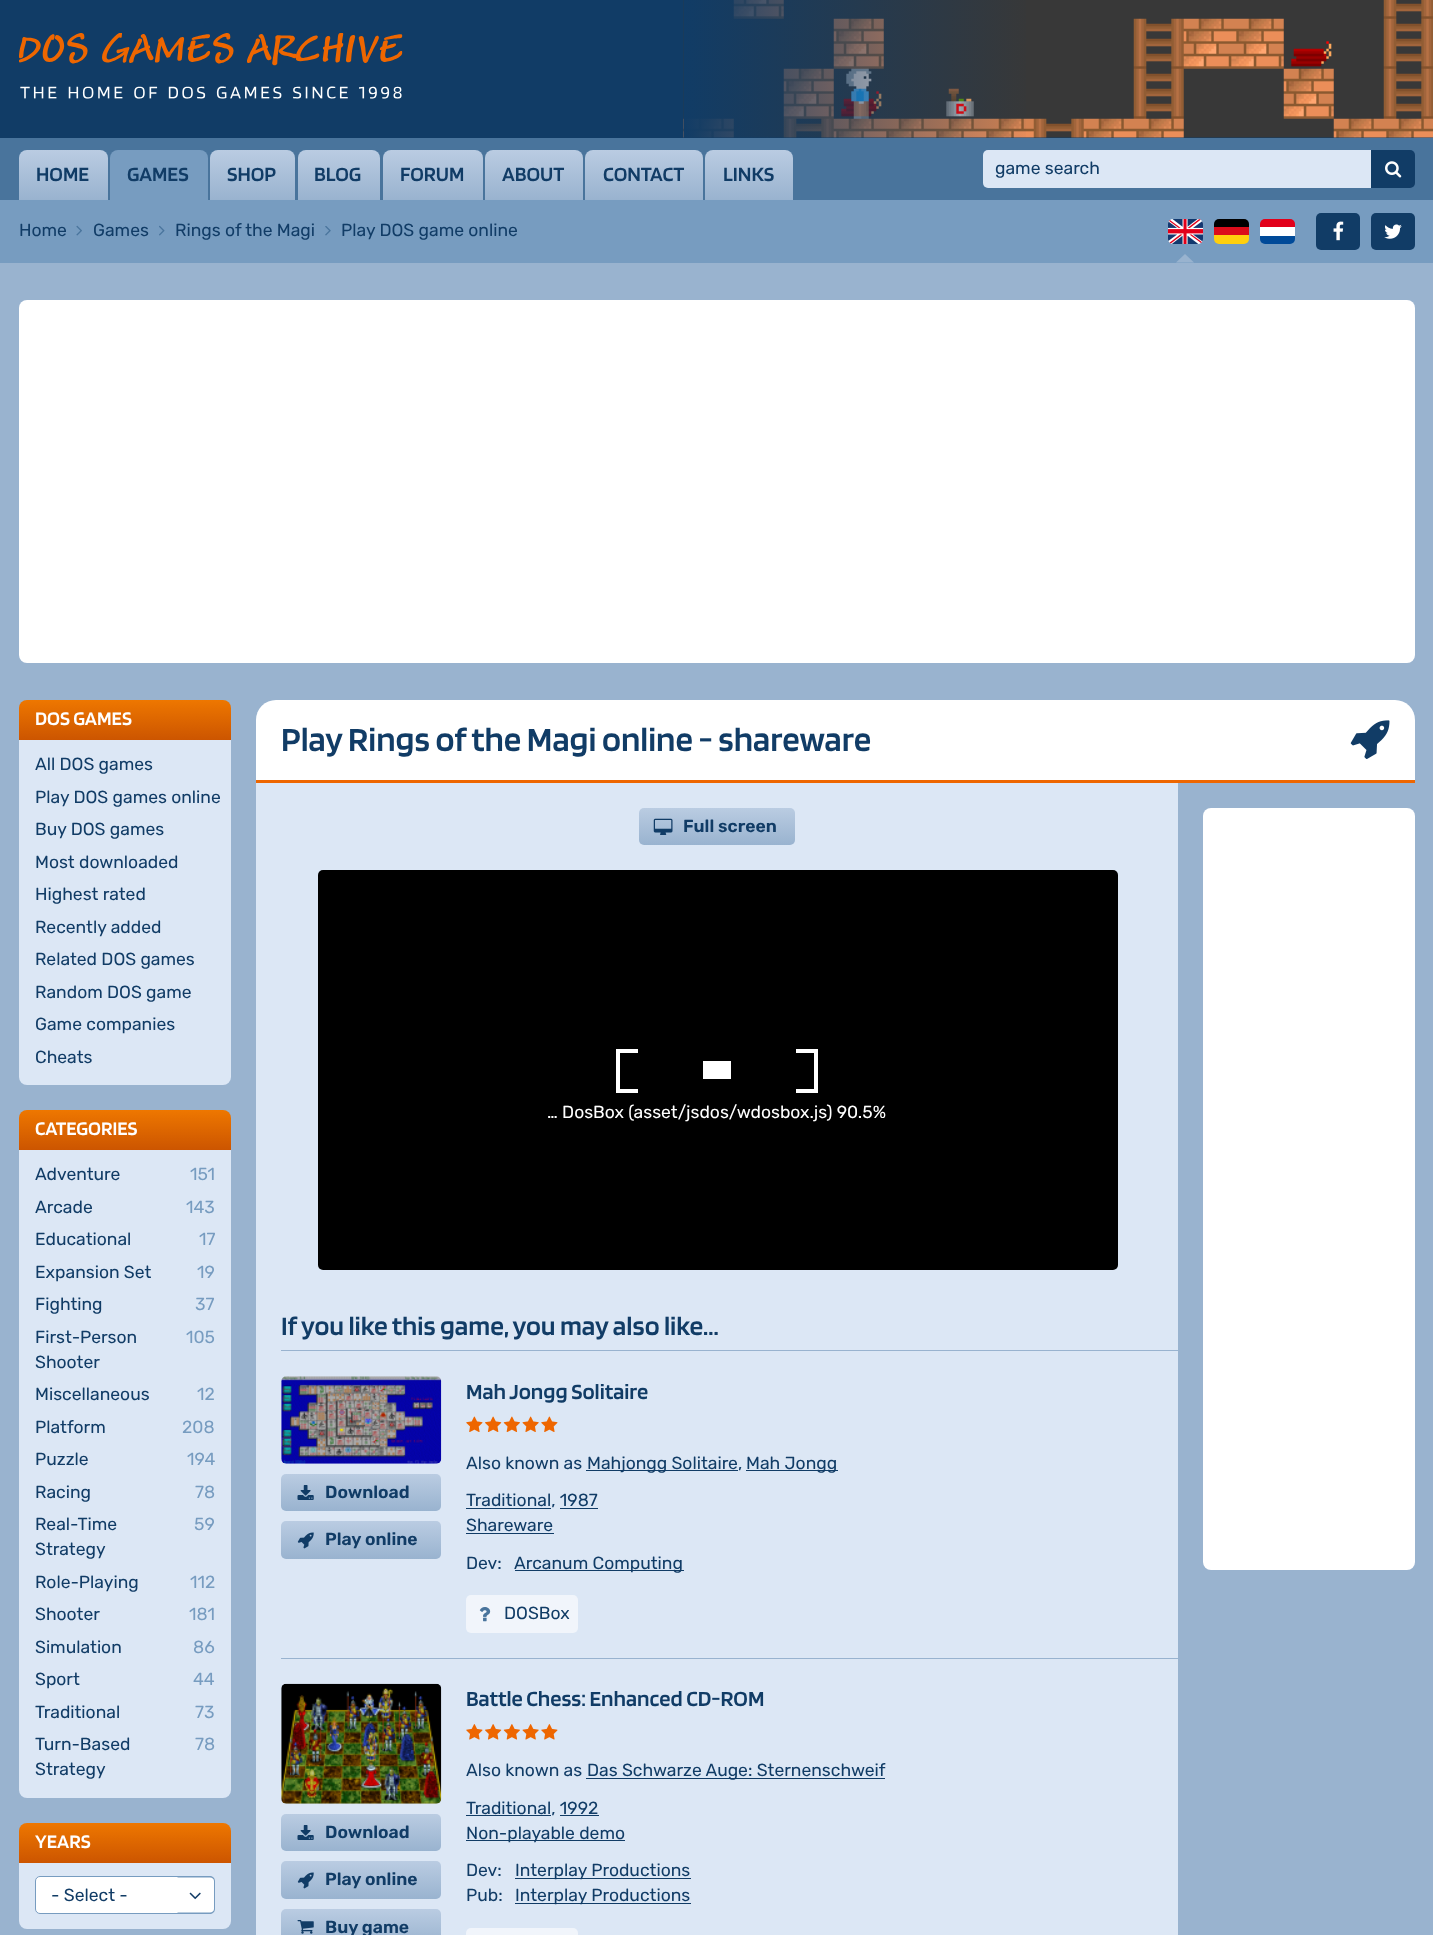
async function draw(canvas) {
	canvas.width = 1433;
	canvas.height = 1935;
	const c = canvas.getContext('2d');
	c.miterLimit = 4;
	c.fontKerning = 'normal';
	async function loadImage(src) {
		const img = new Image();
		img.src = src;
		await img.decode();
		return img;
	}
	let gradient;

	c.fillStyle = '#99b3cf';
	c.fillRect(0, 0, 1433, 1935);
	c.fillStyle = '#113c66';
	c.fillRect(0, 0, 1433, 138);
	c.drawImage(await loadImage('img1.png'), 19, 33, 384, 66);
	c.drawImage(await loadImage('img2.png'), 683, 0, 750, 138);
	gradient = c.createLinearGradient(684, 69, 1034, 69);
	gradient.addColorStop(0, '#113c66');
	gradient.addColorStop(1, '#113c6600');
	c.fillStyle = gradient;
	c.fillRect(684, 0, 342, 138);
	c.fillStyle = '#49749c';
	c.fillRect(0, 138, 1433, 62);
	gradient = c.createLinearGradient(63, 150, 63, 200);
	gradient.addColorStop(0, '#bacce2');
	gradient.addColorStop(1, '#99b3cf');
	c.fillStyle = gradient;
	c.beginPath();
	c.roundRect(19, 150, 89, 50, [8, 8, 0, 0]);
	c.fill();
	c.font = '600 21px Blinker';
	c.fillStyle = '#113c66';
	c.fillText('HOME', 36, 181);
	c.fillStyle = '#779cc0';
	c.beginPath();
	c.roundRect(110, 150, 98, 50, [8, 8, 0, 0]);
	c.fill();
	c.fillStyle = '#113c66';
	c.fillText('GAMES', 127, 181);
	gradient = c.createLinearGradient(253, 150, 253, 200);
	gradient.addColorStop(0, '#bacce2');
	gradient.addColorStop(1, '#99b3cf');
	c.fillStyle = gradient;
	c.beginPath();
	c.roundRect(210, 150, 85, 50, [8, 8, 0, 0]);
	c.fill();
	c.fillStyle = '#113c66';
	c.fillText('SHOP', 227, 181);
	gradient = c.createLinearGradient(339, 150, 339, 200);
	gradient.addColorStop(0, '#bacce2');
	gradient.addColorStop(1, '#99b3cf');
	c.fillStyle = gradient;
	c.beginPath();
	c.roundRect(298, 150, 82, 50, [8, 8, 0, 0]);
	c.fill();
	c.fillStyle = '#113c66';
	c.fillText('BLOG', 314, 181);
	gradient = c.createLinearGradient(433, 150, 433, 200);
	gradient.addColorStop(0, '#bacce2');
	gradient.addColorStop(1, '#99b3cf');
	c.fillStyle = gradient;
	c.beginPath();
	c.roundRect(383, 150, 100, 50, [8, 8, 0, 0]);
	c.fill();
	c.fillStyle = '#113c66';
	c.fillText('FORUM', 400, 181);
	gradient = c.createLinearGradient(534, 150, 534, 200);
	gradient.addColorStop(0, '#bacce2');
	gradient.addColorStop(1, '#99b3cf');
	c.fillStyle = gradient;
	c.beginPath();
	c.roundRect(485, 150, 98, 50, [8, 8, 0, 0]);
	c.fill();
	c.fillStyle = '#113c66';
	c.fillText('ABOUT', 502, 181);
	gradient = c.createLinearGradient(644, 150, 644, 200);
	gradient.addColorStop(0, '#bacce2');
	gradient.addColorStop(1, '#99b3cf');
	c.fillStyle = gradient;
	c.beginPath();
	c.roundRect(585, 150, 118, 50, [8, 8, 0, 0]);
	c.fill();
	c.fillStyle = '#113c66';
	c.fillText('CONTACT', 603, 181);
	gradient = c.createLinearGradient(749, 150, 749, 200);
	gradient.addColorStop(0, '#bacce2');
	gradient.addColorStop(1, '#99b3cf');
	c.fillStyle = gradient;
	c.beginPath();
	c.roundRect(705, 150, 88, 50, [8, 8, 0, 0]);
	c.fill();
	c.fillStyle = '#113c66';
	c.fillText('LINKS', 723, 181);
	c.fillStyle = '#dce7f5';
	c.beginPath();
	c.roundRect(983, 150, 388, 38, [5, 0, 0, 5]);
	c.fill();
	c.font = '17.5px Rubik';
	c.fillStyle = '#113c66';
	c.fillText('game search', 995, 174);
	c.beginPath();
	c.roundRect(1371, 150, 44, 38, [0, 5, 5, 0]);
	c.fill();
	c.drawImage(await loadImage('img3.png'), 1385, 161, 17, 17);
	c.fillStyle = '#779cc0';
	c.fillRect(0, 200, 1433, 63);
	c.fillStyle = '#113c66';
	c.fillText('Home', 19, 236);
	c.drawImage(await loadImage('img4.png'), 76, 225, 6, 11);
	c.fillText('Games', 93, 236);
	c.drawImage(await loadImage('img5.png'), 159, 225, 6, 11);
	c.fillText('Rings of the Magi', 175, 236);
	c.drawImage(await loadImage('img6.png'), 325, 226, 6, 10);
	c.fillText('Play DOS game online', 341, 236);
	c.fillStyle = '#99b3cf';
	c.beginPath();
	c.moveTo(1176, 262.5);
	c.lineTo(1185, 254);
	c.lineTo(1194, 262.5);
	c.closePath();
	c.fill();
	c.drawImage(await loadImage('img7.png'), 1168, 219, 35, 25);
	c.fillStyle = '#000';
	c.beginPath();
	c.roundRect(1214, 219, 35, 8, [5, 5, 0, 0]);
	c.fill();
	c.fillStyle = '#dc0c1b';
	c.fillRect(1214, 227, 35, 8);
	c.fillStyle = '#ffcf0d';
	c.beginPath();
	c.roundRect(1214, 235, 35, 9, [0, 0, 5, 5]);
	c.fill();
	c.fillStyle = '#004a99';
	c.beginPath();
	c.roundRect(1260, 235, 35, 9, [0, 0, 5, 5]);
	c.fill();
	c.fillStyle = '#fff';
	c.fillRect(1260, 227, 35, 9);
	c.fillStyle = '#e2001a';
	c.beginPath();
	c.roundRect(1260, 219, 35, 8, [5, 5, 0, 0]);
	c.fill();
	c.fillStyle = '#113c66';
	c.beginPath();
	c.roundRect(1316, 213, 44, 37, 5);
	c.fill();
	c.drawImage(await loadImage('img8.png'), 1333, 221, 11, 20);
	c.beginPath();
	c.roundRect(1371, 213, 44, 37, 5);
	c.fill();
	c.drawImage(await loadImage('img9.png'), 1384, 224, 18, 15);
	c.fillStyle = '#fff';
	c.beginPath();
	c.roundRect(19, 300, 1396, 363, 8);
	c.fill();
	gradient = c.createLinearGradient(125, 700, 125, 740);
	gradient.addColorStop(0, '#e70');
	gradient.addColorStop(1, '#c50');
	c.fillStyle = gradient;
	c.beginPath();
	c.roundRect(19, 700, 212, 40, [8, 8, 0, 0]);
	c.fill();
	c.font = '600 20px Blinker';
	c.fillStyle = '#fff';
	c.fillText('DOS GAMES', 35, 725);
	c.fillStyle = '#dce7f5';
	c.beginPath();
	c.roundRect(19, 740, 212, 345, [0, 0, 8, 8]);
	c.fill();
	c.font = '17.5px Rubik';
	c.fillStyle = '#113c66';
	for (const [text, x, y] of [
		['All DOS games', 35, 770],
		['Play DOS games online', 35, 803],
		['Buy DOS games', 35, 835],
		['Most downloaded', 35, 868],
		['Highest rated', 35, 900],
		['Recently added', 35, 933],
		['Related DOS games', 35, 965],
		['Random DOS game', 35, 998],
		['Game companies', 35, 1030],
		['Cheats', 35, 1063],
	]) {
		c.fillText(text, x, y);
	}
	gradient = c.createLinearGradient(125, 1110, 125, 1150);
	gradient.addColorStop(0, '#e70');
	gradient.addColorStop(1, '#c50');
	c.fillStyle = gradient;
	c.beginPath();
	c.roundRect(19, 1110, 212, 40, [8, 8, 0, 0]);
	c.fill();
	c.font = '600 20px Blinker';
	c.fillStyle = '#fff';
	c.fillText('CATEGORIES', 35, 1135);
	c.fillStyle = '#dce7f5';
	c.beginPath();
	c.roundRect(19, 1150, 212, 648, [0, 0, 8, 8]);
	c.fill();
	c.font = '17.5px Rubik';
	c.fillStyle = '#113c66';
	c.fillText('Adventure', 35, 1180);
	c.fillStyle = '#779cc0';
	c.fillText('151', 190, 1180);
	c.fillStyle = '#113c66';
	c.fillText('Arcade', 35, 1213);
	c.fillStyle = '#779cc0';
	c.fillText('143', 186, 1213);
	c.fillStyle = '#113c66';
	c.fillText('Educational', 35, 1245);
	c.fillStyle = '#779cc0';
	c.fillText('17', 199, 1245);
	c.fillStyle = '#113c66';
	c.fillText('Expansion Set', 35, 1278);
	c.fillStyle = '#779cc0';
	c.fillText('19', 197, 1278);
	c.fillStyle = '#113c66';
	c.fillText('Fighting', 35, 1310);
	c.fillStyle = '#779cc0';
	c.fillText('37', 195, 1310);
	c.fillStyle = '#113c66';
	c.fillText('First-Person', 35, 1343);
	c.fillStyle = '#779cc0';
	c.fillText('105', 186, 1343);
	c.fillStyle = '#113c66';
	c.fillText('Shooter', 35, 1368);
	c.fillText('Miscellaneous', 35, 1400);
	c.fillStyle = '#779cc0';
	c.fillText('12', 197, 1400);
	c.fillStyle = '#113c66';
	c.fillText('Platform', 35, 1433);
	c.fillStyle = '#779cc0';
	c.fillText('208', 182, 1433);
	c.fillStyle = '#113c66';
	c.fillText('Puzzle', 35, 1465);
	c.fillStyle = '#779cc0';
	c.fillText('194', 187, 1465);
	c.fillStyle = '#113c66';
	c.fillText('Racing', 35, 1498);
	c.fillStyle = '#779cc0';
	c.fillText('78', 195, 1498);
	c.fillStyle = '#113c66';
	c.fillText('Real-Time', 35, 1530);
	c.fillStyle = '#779cc0';
	c.fillText('59', 194, 1530);
	c.fillStyle = '#113c66';
	c.fillText('Strategy', 35, 1555);
	c.fillText('Role-Playing', 35, 1588);
	c.fillStyle = '#779cc0';
	c.fillText('112', 190, 1588);
	c.fillStyle = '#113c66';
	c.fillText('Shooter', 35, 1620);
	c.fillStyle = '#779cc0';
	c.fillText('181', 189, 1620);
	c.fillStyle = '#113c66';
	c.fillText('Simulation', 35, 1653);
	c.fillStyle = '#779cc0';
	c.fillText('86', 193, 1653);
	c.fillStyle = '#113c66';
	c.fillText('Sport', 35, 1685);
	c.fillStyle = '#779cc0';
	c.fillText('44', 193, 1685);
	c.fillStyle = '#113c66';
	c.fillText('Traditional', 35, 1718);
	c.fillStyle = '#779cc0';
	c.fillText('73', 195, 1718);
	c.fillStyle = '#113c66';
	c.fillText('Turn-Based', 35, 1750);
	c.fillStyle = '#779cc0';
	c.fillText('78', 195, 1750);
	c.fillStyle = '#113c66';
	c.fillText('Strategy', 35, 1775);
	gradient = c.createLinearGradient(125, 1823, 125, 1863);
	gradient.addColorStop(0, '#e70');
	gradient.addColorStop(1, '#c50');
	c.fillStyle = gradient;
	c.beginPath();
	c.roundRect(19, 1823, 212, 40, [8, 8, 0, 0]);
	c.fill();
	c.font = '600 20px Blinker';
	c.fillStyle = '#fff';
	c.fillText('YEARS', 35, 1848);
	c.fillStyle = '#dce7f5';
	c.beginPath();
	c.roundRect(19, 1863, 212, 66, [0, 0, 8, 8]);
	c.fill();
	c.fillStyle = '#fff';
	c.beginPath();
	c.roundRect(35.5, 1876.5, 179, 37, 4.5);
	c.fill();
	c.strokeStyle = '#779cc0';
	c.stroke();
	c.font = '17.5px Rubik';
	c.fillStyle = '#113c66';
	c.fillText('- Select -', 51, 1901);
	c.fillStyle = '#fff';
	c.beginPath();
	c.roundRect(178, 1876, 37, 38, [0, 5, 5, 0]);
	c.fill();
	c.fillStyle = '#779cc0';
	c.beginPath();
	c.moveTo(177.5, 1876);
	c.lineTo(210, 1876);
	c.bezierCurveTo(213, 1876, 215, 1878.5, 215, 1881);
	c.lineTo(215, 1909);
	c.bezierCurveTo(215, 1911.5, 213, 1914, 210, 1914);
	c.lineTo(177.5, 1914);
	c.closePath();
	c.moveTo(177.5, 1877.5);
	c.lineTo(210, 1877.5);
	c.bezierCurveTo(212, 1877.5, 214, 1879, 214, 1881);
	c.lineTo(214, 1909);
	c.bezierCurveTo(214, 1911, 212, 1912.5, 210, 1912.5);
	c.lineTo(177.5, 1912.5);
	c.closePath();
	c.fill('evenodd');
	c.drawImage(await loadImage('img10.png'), 189, 1892, 12, 8);
	c.fillStyle = '#fff';
	c.beginPath();
	c.roundRect(256, 700, 1159, 83, [20, 20, 0, 0]);
	c.fill();
	c.fillStyle = '#e60';
	c.fillRect(256, 780, 1159, 3);
	c.font = '600 35px Blinker';
	c.fillStyle = '#113c66';
	c.fillText('Play Rings of the Magi online - shareware', 281, 751);
	c.drawImage(await loadImage('img11.png'), 1350, 720, 40, 39);
	c.fillStyle = '#dce7f5';
	c.fillRect(256, 783, 922, 1152);
	gradient = c.createLinearGradient(717, 808, 717, 845);
	gradient.addColorStop(0, '#bacce2');
	gradient.addColorStop(1, '#99b3cf');
	c.fillStyle = gradient;
	c.beginPath();
	c.roundRect(639, 808, 156, 37, 5);
	c.fill();
	c.drawImage(await loadImage('img12.png'), 653, 818, 20, 17);
	c.font = '600 17.5px Rubik';
	c.fillStyle = '#113c66';
	c.fillText('Full screen', 683, 832);
	c.fillStyle = '#000';
	c.beginPath();
	c.roundRect(318, 870, 800, 400, 5);
	c.fill();
	for (const [x, y, w, h, color] of [
		[616, 1049, 22, 4, '#fff'],
		[616, 1089, 22, 4, '#fff'],
		[616, 1049, 4, 44, '#fff'],
		[703, 1061, 28, 18, '#fff'],
		[796, 1049, 22, 4, '#fff'],
		[814, 1049, 4, 44, '#fff'],
		[796, 1089, 22, 4, '#fff'],
	]) {
		c.fillStyle = color;
		c.fillRect(x, y, w, h);
	}
	c.font = '17.5px Rubik';
	c.fillText('… DosBox (asset/jsdos/wdosbox.js) 90.5%', 547, 1118);
	c.fillStyle = '#99b3cf';
	c.fillRect(281, 1350, 897, 1);
	c.font = '600 27.5px Blinker';
	c.fillStyle = '#113c66';
	c.fillText('If you like this game, you may also like...', 281, 1335);
	c.drawImage(await loadImage('img13.png'), 281, 1376, 161, 88);
	gradient = c.createLinearGradient(361, 1474, 361, 1511);
	gradient.addColorStop(0, '#bacce2');
	gradient.addColorStop(1, '#99b3cf');
	c.fillStyle = gradient;
	c.beginPath();
	c.roundRect(281, 1474, 160, 37, 5);
	c.fill();
	c.drawImage(await loadImage('img14.png'), 297, 1485, 17, 15);
	c.font = '600 17.5px Rubik';
	c.fillStyle = '#113c66';
	c.fillText('Download', 325, 1498);
	gradient = c.createLinearGradient(361, 1521, 361, 1559);
	gradient.addColorStop(0, '#bacce2');
	gradient.addColorStop(1, '#99b3cf');
	c.fillStyle = gradient;
	c.beginPath();
	c.roundRect(281, 1521, 160, 38, 5);
	c.fill();
	c.drawImage(await loadImage('img15.png'), 297, 1532, 17, 17);
	c.fillStyle = '#113c66';
	c.fillText('Play online', 325, 1545);
	c.font = '600 22.5px Blinker';
	c.fillText('Mah Jongg Solitaire', 466, 1399);
	c.drawImage(await loadImage('img16.png'), 466, 1416, 92, 16);
	c.font = '17.5px Rubik';
	c.fillText('Also known as', 466, 1469);
	c.fillRect(586, 1470, 152, 1);
	c.fillText('Mahjongg Solitaire,', 587, 1469);
	c.fillRect(746, 1470, 92, 1);
	c.fillText('Mah Jongg', 746, 1469);
	c.fillText('Traditional, 1987', 466, 1506);
	c.fillRect(466, 1508, 85, 1);
	c.fillRect(560, 1508, 38, 1);
	c.fillText('Shareware', 466, 1531);
	c.fillRect(466, 1533, 88, 1);
	c.fillText('Dev:', 466, 1569);
	c.fillRect(515, 1570, 169, 1);
	c.fillText('Arcanum Computing', 514, 1569);
	c.fillStyle = '#f1f5fb';
	c.beginPath();
	c.roundRect(466, 1595, 112, 38, 5);
	c.fill();
	c.drawImage(await loadImage('img17.png'), 479, 1607, 12, 15);
	c.fillStyle = '#113c66';
	c.fillText('DOSBox', 504, 1619);
	c.fillStyle = '#99b3cf';
	c.fillRect(281, 1658, 897, 1);
	c.drawImage(await loadImage('img18.png'), 281, 1683, 161, 121);
	gradient = c.createLinearGradient(361, 1814, 361, 1851);
	gradient.addColorStop(0, '#bacce2');
	gradient.addColorStop(1, '#99b3cf');
	c.fillStyle = gradient;
	c.beginPath();
	c.roundRect(281, 1814, 160, 37, 5);
	c.fill();
	c.drawImage(await loadImage('img14.png'), 297, 1825, 17, 15);
	c.font = '600 17.5px Rubik';
	c.fillStyle = '#113c66';
	c.fillText('Download', 325, 1838);
	gradient = c.createLinearGradient(361, 1861, 361, 1899);
	gradient.addColorStop(0, '#bacce2');
	gradient.addColorStop(1, '#99b3cf');
	c.fillStyle = gradient;
	c.beginPath();
	c.roundRect(281, 1861, 160, 38, 5);
	c.fill();
	c.drawImage(await loadImage('img15.png'), 297, 1872, 17, 17);
	c.fillStyle = '#113c66';
	c.fillText('Play online', 325, 1885);
	gradient = c.createLinearGradient(361, 1909, 361, 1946);
	gradient.addColorStop(0, '#bacce2');
	gradient.addColorStop(1, '#99b3cf');
	c.fillStyle = gradient;
	c.beginPath();
	c.roundRect(281, 1909, 160, 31, 5);
	c.fill();
	c.drawImage(await loadImage('img19.png'), 297, 1920, 17, 14);
	c.fillStyle = '#113c66';
	c.fillText('Buy game', 325, 1933);
	c.font = '600 22.5px Blinker';
	c.fillText('Battle Chess: Enhanced CD-ROM', 466, 1706);
	c.drawImage(await loadImage('img20.png'), 466, 1724, 92, 16);
	c.font = '17.5px Rubik';
	c.fillText('Also known as', 466, 1776);
	c.fillRect(586, 1778, 299, 1);
	c.fillText('Das Schwarze Auge: Sternenschweif', 587, 1776);
	c.fillRect(466, 1815, 85, 1);
	c.fillText('Traditional, 1992', 466, 1814);
	c.fillRect(560, 1815, 39, 1);
	c.fillRect(466, 1840, 159, 1);
	c.fillText('Non-playable demo', 466, 1839);
	c.fillText('Dev:', 466, 1876);
	c.fillRect(515, 1878, 176, 1);
	c.fillText('Interplay Productions', 515, 1876);
	c.fillText('Pub:', 466, 1901);
	c.fillRect(515, 1903, 176, 1);
	c.fillText('Interplay Productions', 515, 1901);
	c.fillStyle = '#f1f5fb';
	c.beginPath();
	c.roundRect(466, 1928, 112, 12, 5);
	c.fill();
	c.fillStyle = '#fff';
	c.beginPath();
	c.roundRect(1203, 808, 212, 762, 8);
	c.fill();
}

draw(document.querySelector('canvas'));
